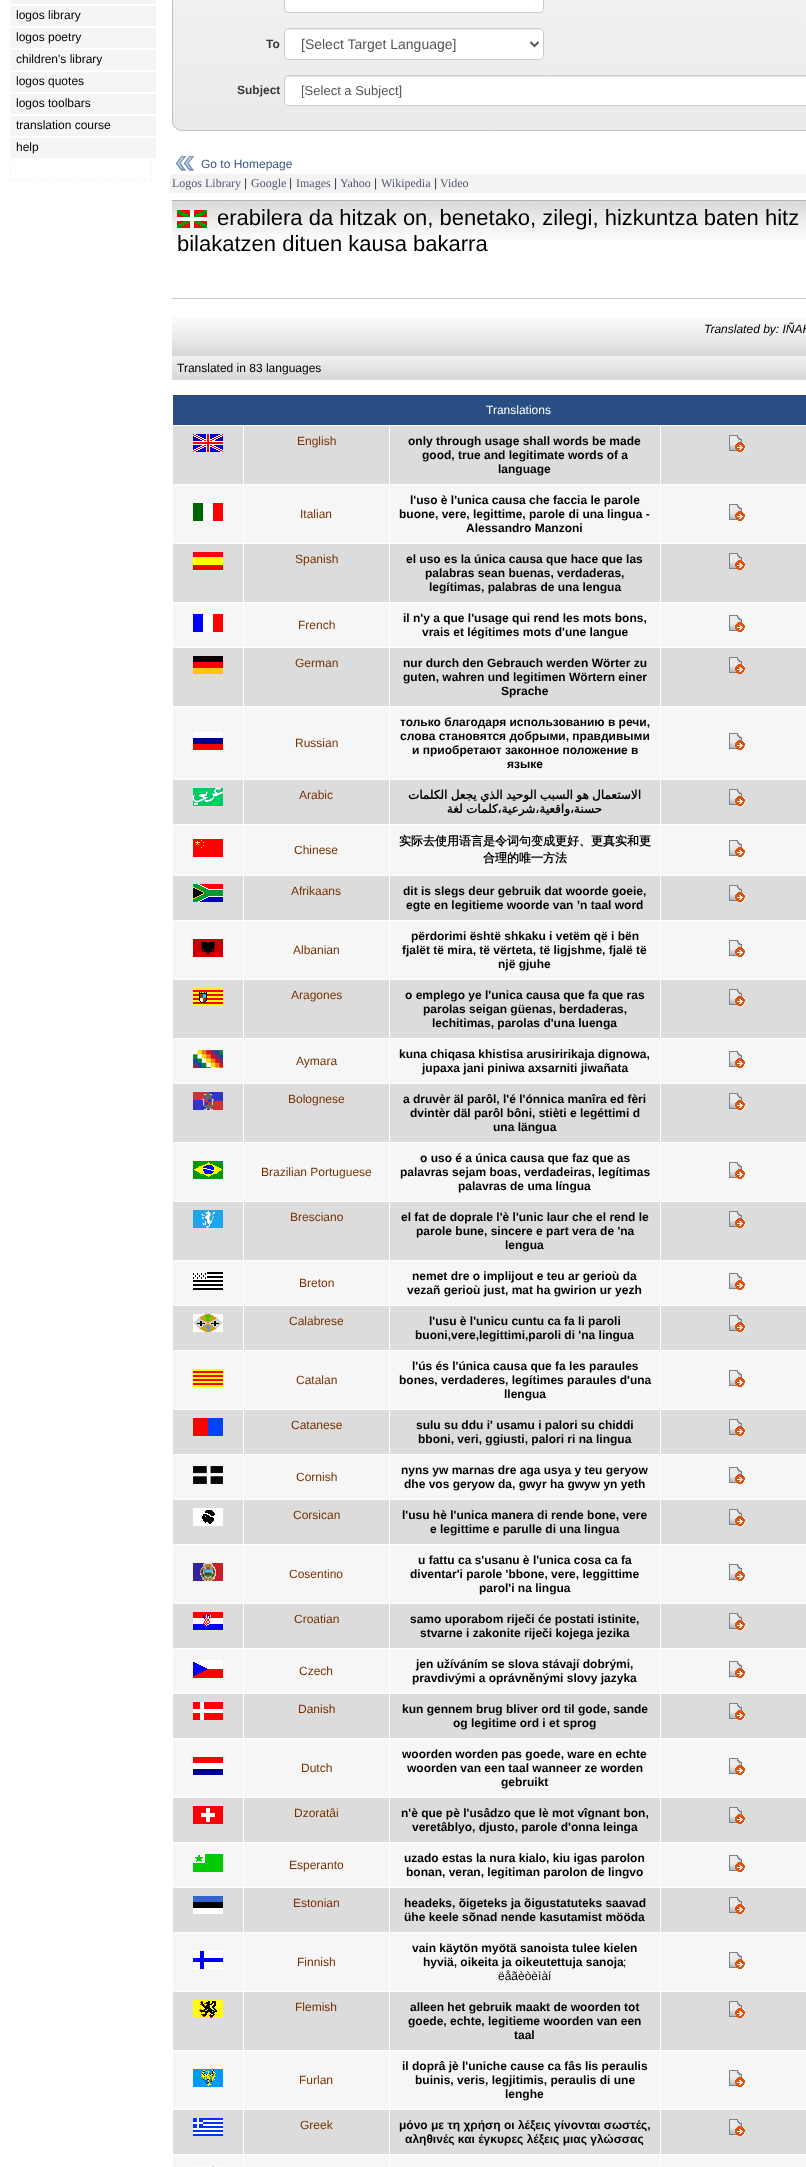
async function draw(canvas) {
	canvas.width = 806;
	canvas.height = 2167;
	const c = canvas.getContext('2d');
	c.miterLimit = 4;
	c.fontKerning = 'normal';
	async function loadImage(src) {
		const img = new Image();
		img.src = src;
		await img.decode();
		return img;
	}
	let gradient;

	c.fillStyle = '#fff';
	c.fillRect(0, 0, 806, 2167);
	c.beginPath();
	c.moveTo(151.5, -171);
	c.lineTo(151.5, 181);
	c.strokeStyle = '#f5f5f5';
	c.setLineDash([3, 1.99]);
	c.stroke();
	c.beginPath();
	c.moveTo(10, 180.5);
	c.lineTo(152, 180.5);
	c.setLineDash([3, 1.96]);
	c.stroke();
	c.beginPath();
	c.moveTo(10.5, -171);
	c.lineTo(10.5, 181);
	c.setLineDash([3, 1.99]);
	c.stroke();
	c.fillStyle = '#f5f5f5';
	c.fillRect(11, 0, 145, 4);
	c.fillRect(11, 6, 145, 20);
	c.font = '12px Liberation Sans';
	c.fillStyle = '#000';
	c.fillText('logos library', 16, 19);
	c.fillStyle = '#f5f5f5';
	c.fillRect(11, 28, 145, 20);
	c.fillStyle = '#000';
	c.fillText('logos poetry', 16, 41);
	c.fillStyle = '#f5f5f5';
	c.fillRect(11, 50, 145, 20);
	c.fillStyle = '#000';
	c.fillText('children\'s library', 16, 63);
	c.fillStyle = '#f5f5f5';
	c.fillRect(11, 72, 145, 20);
	c.fillStyle = '#000';
	c.fillText('logos quotes', 16, 85);
	c.fillStyle = '#f5f5f5';
	c.fillRect(11, 94, 145, 20);
	c.fillStyle = '#000';
	c.fillText('logos toolbars', 16, 107);
	c.fillStyle = '#f5f5f5';
	c.fillRect(11, 116, 145, 20);
	c.fillStyle = '#000';
	c.fillText('translation course', 16, 129);
	c.fillStyle = '#f5f5f5';
	c.fillRect(11, 138, 145, 20);
	c.fillStyle = '#000';
	c.fillText('help', 16, 151);
	c.save();
	c.beginPath();
	c.roundRect(172, -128, 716, 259, 10);
	c.clip();
	gradient = c.createLinearGradient(530, -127, 530, 130);
	gradient.addColorStop(0, '#f7f7f7');
	gradient.addColorStop(1, '#eaeaea');
	c.fillStyle = gradient;
	c.fillRect(172, 0, 634, 130);
	c.restore();
	c.beginPath();
	c.roundRect(172.5, -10.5, 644, 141, 9.5);
	c.strokeStyle = '#c0c0c0';
	c.setLineDash([]);
	c.stroke();
	c.fillStyle = '#fff';
	c.beginPath();
	c.roundRect(284.5, -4.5, 259, 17, 3.5);
	c.fill();
	c.strokeStyle = '#ccc';
	c.stroke();
	c.beginPath();
	c.moveTo(530.5, -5);
	c.lineTo(534.5, -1);
	c.lineTo(538.5, -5);
	c.strokeStyle = '#555';
	c.lineWidth = 2;
	c.stroke();
	c.font = 'bold 12px Liberation Sans';
	c.fillStyle = '#383838';
	c.fillText('To', 266, 48);
	c.fillStyle = '#fff';
	c.beginPath();
	c.roundRect(284, 28, 260, 32, 4);
	c.fill();
	c.fillStyle = '#ececec';
	c.beginPath();
	c.moveTo(288, 30);
	c.lineTo(541, 30);
	c.lineTo(543, 31);
	c.lineTo(543, 33);
	c.lineTo(543, 32);
	c.bezierCurveTo(543, 30, 542, 29, 540, 29);
	c.lineTo(288, 29);
	c.bezierCurveTo(286, 29, 285, 30, 285, 32);
	c.lineTo(285, 33);
	c.bezierCurveTo(285, 31, 286, 30, 288, 30);
	c.closePath();
	c.fill();
	c.beginPath();
	c.roundRect(284.5, 28.5, 259, 31, 3.5);
	c.strokeStyle = '#ccc';
	c.lineWidth = 1;
	c.stroke();
	c.beginPath();
	c.moveTo(530.5, 42);
	c.lineTo(534.5, 46);
	c.lineTo(538.5, 42);
	c.strokeStyle = '#555';
	c.lineWidth = 2;
	c.stroke();
	c.font = '14px Liberation Sans';
	c.fillStyle = '#555';
	c.fillText('[Select Target Language]', 301, 49);
	c.font = 'bold 12px Liberation Sans';
	c.fillStyle = '#383838';
	c.fillText('Subject', 237, 94);
	c.fillStyle = '#fff';
	c.beginPath();
	c.roundRect(284, 75, 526, 31, 4);
	c.fill();
	c.fillStyle = '#ececec';
	c.beginPath();
	c.moveTo(288, 77);
	c.lineTo(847, 77);
	c.bezierCurveTo(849, 77, 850, 78, 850, 80);
	c.lineTo(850, 79);
	c.bezierCurveTo(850, 77, 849, 76, 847, 76);
	c.lineTo(288, 76);
	c.bezierCurveTo(286, 76, 285, 77, 285, 79);
	c.lineTo(285, 80);
	c.bezierCurveTo(285, 78, 286, 77, 288, 77);
	c.closePath();
	c.fill();
	c.beginPath();
	c.roundRect(284.5, 75.5, 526, 30, 3.5);
	c.strokeStyle = '#ccc';
	c.lineWidth = 1;
	c.stroke();
	c.font = '13px Liberation Sans';
	c.fillStyle = '#555';
	c.fillText('[Select a Subject]', 301, 95);
	c.drawImage(await loadImage('img1.png'), 176, 156, 18, 15);
	c.font = '12px Liberation Sans';
	c.fillStyle = '#365582';
	c.fillText('Go to Homepage', 201, 168);
	c.fillStyle = '#f3f3f3';
	c.fillRect(170, 174, 636, 19);
	c.font = '12px Liberation Serif';
	c.fillStyle = '#4f596f';
	c.fillText('Logos Library', 172, 187);
	c.font = '12px Liberation Sans';
	c.fillStyle = '#383838';
	c.fillText('|', 244, 187);
	c.font = '12px Liberation Serif';
	c.fillStyle = '#4f596f';
	c.fillText('Google', 251, 187);
	c.font = '12px Liberation Sans';
	c.fillStyle = '#383838';
	c.fillText('|', 289, 187);
	c.font = '12px Liberation Serif';
	c.fillStyle = '#4f596f';
	c.fillText('Images', 296, 187);
	c.font = '12px Liberation Sans';
	c.fillStyle = '#383838';
	c.fillText('|', 334, 187);
	c.font = '12px Liberation Serif';
	c.fillStyle = '#4f596f';
	c.fillText('Yahoo', 340, 187);
	c.font = '12px Liberation Sans';
	c.fillStyle = '#383838';
	c.fillText('|', 374, 187);
	c.font = '12px Liberation Serif';
	c.fillStyle = '#4f596f';
	c.fillText('Wikipedia', 381, 187);
	c.font = '12px Liberation Sans';
	c.fillStyle = '#383838';
	c.fillText('|', 434, 187);
	c.font = '12px Liberation Serif';
	c.fillStyle = '#4f596f';
	c.fillText('Video', 440, 187);
	c.drawImage(await loadImage('img2.png'), 172, 200, 634, 40);
	c.drawImage(await loadImage('img3.png'), 177, 210, 30, 18);
	c.font = '22px Liberation Sans';
	c.fillStyle = '#000';
	c.fillText('erabilera da hitzak on, benetako, zilegi, hizkuntza baten hitz', 217, 225);
	c.fillText('bilakatzen dituen kausa bakarra', 177, 251);
	c.fillStyle = '#c8c8c8';
	c.fillRect(172, 298, 634, 1);
	c.drawImage(await loadImage('img4.png'), 172, 317, 634, 39);
	c.font = 'italic 12px Liberation Sans';
	c.fillStyle = '#000';
	c.fillText('Translated by: IÑAK', 704, 333);
	c.drawImage(await loadImage('img5.png'), 172, 356, 634, 24);
	c.font = '12px Liberation Sans';
	c.fillText('Translated in 83 languages', 177, 372);
	c.fillStyle = '#284e84';
	c.fillRect(173, 395, 633, 30);
	c.fillStyle = '#fff';
	c.fillText('Translations', 486, 414);
	c.fillStyle = '#dcdcdc';
	c.fillRect(173, 426, 70, 58);
	c.drawImage(await loadImage('img6.png'), 193, 434, 30, 18);
	c.fillRect(244, 426, 145, 58);
	c.fillStyle = '#773203';
	c.fillText('English', 297, 445);
	c.fillStyle = '#dcdcdc';
	c.fillRect(390, 426, 270, 58);
	c.font = 'bold 12px Liberation Sans';
	c.fillStyle = '#000';
	for (const [text, x, y] of [
		['only through usage shall words be made', 408, 445],
		['good, true and legitimate words of a', 422, 459],
		['language', 498, 473],
	]) {
		c.fillText(text, x, y);
	}
	c.fillStyle = '#dcdcdc';
	c.fillRect(661, 426, 145, 58);
	c.drawImage(await loadImage('img7.png'), 729, 435, 16, 17);
	c.fillStyle = '#f6f6f6';
	c.fillRect(173, 485, 70, 58);
	c.drawImage(await loadImage('img8.png'), 193, 503, 30, 18);
	c.fillRect(244, 485, 145, 58);
	c.font = '12px Liberation Sans';
	c.fillStyle = '#773203';
	c.fillText('Italian', 300, 518);
	c.fillStyle = '#f6f6f6';
	c.fillRect(390, 485, 270, 58);
	c.font = 'bold 12px Liberation Sans';
	c.fillStyle = '#000';
	for (const [text, x, y] of [
		['l\'uso è l\'unica causa che faccia le parole', 410, 504],
		['buone, vere, legittime, parole di una lingua -', 399, 518],
		['Alessandro Manzoni', 466, 532],
	]) {
		c.fillText(text, x, y);
	}
	c.fillStyle = '#f6f6f6';
	c.fillRect(661, 485, 145, 58);
	c.drawImage(await loadImage('img9.png'), 729, 504, 16, 17);
	c.fillStyle = '#dcdcdc';
	c.fillRect(173, 544, 70, 58);
	c.drawImage(await loadImage('img10.png'), 193, 552, 30, 18);
	c.fillRect(244, 544, 145, 58);
	c.font = '12px Liberation Sans';
	c.fillStyle = '#773203';
	c.fillText('Spanish', 295, 563);
	c.fillStyle = '#dcdcdc';
	c.fillRect(390, 544, 270, 58);
	c.font = 'bold 12px Liberation Sans';
	c.fillStyle = '#000';
	for (const [text, x, y] of [
		['el uso es la única causa que hace que las', 406, 563],
		['palabras sean buenas, verdaderas,', 425, 577],
		['legítimas, palabras de una lengua', 429, 591],
	]) {
		c.fillText(text, x, y);
	}
	c.fillStyle = '#dcdcdc';
	c.fillRect(661, 544, 145, 58);
	c.drawImage(await loadImage('img7.png'), 729, 553, 16, 17);
	c.fillStyle = '#f6f6f6';
	c.fillRect(173, 603, 70, 44);
	c.drawImage(await loadImage('img11.png'), 193, 614, 30, 18);
	c.fillRect(244, 603, 145, 44);
	c.font = '12px Liberation Sans';
	c.fillStyle = '#773203';
	c.fillText('French', 298, 629);
	c.fillStyle = '#f6f6f6';
	c.fillRect(390, 603, 270, 44);
	c.font = 'bold 12px Liberation Sans';
	c.fillStyle = '#000';
	c.fillText('il n\'y a que l\'usage qui rend les mots bons,', 403, 622);
	c.fillText('vrais et légitimes mots d\'une langue', 422, 636);
	c.fillStyle = '#f6f6f6';
	c.fillRect(661, 603, 145, 44);
	c.drawImage(await loadImage('img9.png'), 729, 615, 16, 17);
	c.fillStyle = '#dcdcdc';
	c.fillRect(173, 648, 70, 58);
	c.drawImage(await loadImage('img12.png'), 193, 656, 30, 18);
	c.fillRect(244, 648, 145, 58);
	c.font = '12px Liberation Sans';
	c.fillStyle = '#773203';
	c.fillText('German', 295, 667);
	c.fillStyle = '#dcdcdc';
	c.fillRect(390, 648, 270, 58);
	c.font = 'bold 12px Liberation Sans';
	c.fillStyle = '#000';
	for (const [text, x, y] of [
		['nur durch den Gebrauch werden Wörter zu', 403, 667],
		['guten, wahren und legitimen Wörtern einer', 403, 681],
		['Sprache', 501, 695],
	]) {
		c.fillText(text, x, y);
	}
	c.fillStyle = '#dcdcdc';
	c.fillRect(661, 648, 145, 58);
	c.drawImage(await loadImage('img7.png'), 729, 657, 16, 17);
	c.fillStyle = '#f6f6f6';
	c.fillRect(173, 707, 70, 72);
	c.drawImage(await loadImage('img13.png'), 193, 732, 30, 18);
	c.fillRect(244, 707, 145, 72);
	c.font = '12px Liberation Sans';
	c.fillStyle = '#773203';
	c.fillText('Russian', 295, 747);
	c.fillStyle = '#f6f6f6';
	c.fillRect(390, 707, 270, 72);
	c.font = 'bold 12px Liberation Sans';
	c.fillStyle = '#000';
	for (const [text, x, y] of [
		['только благодаря использованию в речи,', 400, 726],
		['слова становятся добрыми, правдивыми', 400, 740],
		['и приобретают законное положение в', 412, 754],
		['языке', 507, 768],
	]) {
		c.fillText(text, x, y);
	}
	c.fillStyle = '#f6f6f6';
	c.fillRect(661, 707, 145, 72);
	c.drawImage(await loadImage('img9.png'), 729, 733, 16, 17);
	c.fillStyle = '#dcdcdc';
	c.fillRect(173, 780, 70, 44);
	c.drawImage(await loadImage('img14.png'), 193, 788, 30, 18);
	c.fillRect(244, 780, 145, 44);
	c.font = '12px Liberation Sans';
	c.fillStyle = '#773203';
	c.fillText('Arabic', 299, 799);
	c.fillStyle = '#dcdcdc';
	c.fillRect(390, 780, 270, 44);
	c.wordSpacing = '-0.5px';
	c.direction = 'rtl';
	c.font = 'bold 12px DejaVu Sans';
	c.fillStyle = '#000';
	c.fillText('الاستعمال هو السبب الوحيد الذي يجعل الكلمات', 641, 799);
	c.fillText('حسنة،واقعية،شرعية،كلمات لغة', 602, 813);
	c.fillStyle = '#dcdcdc';
	c.fillRect(661, 780, 145, 44);
	c.drawImage(await loadImage('img7.png'), 729, 789, 16, 17);
	c.fillStyle = '#f6f6f6';
	c.fillRect(173, 825, 70, 50);
	c.drawImage(await loadImage('img15.png'), 193, 839, 30, 18);
	c.fillRect(244, 825, 145, 50);
	c.wordSpacing = '0px';
	c.direction = 'ltr';
	c.font = '12px Liberation Sans';
	c.fillStyle = '#773203';
	c.fillText('Chinese', 294, 854);
	c.fillStyle = '#f6f6f6';
	c.fillRect(390, 825, 270, 50);
	c.font = 'bold 12px WenQuanYi Zen Hei';
	c.fillStyle = '#000';
	c.fillText('实际去使用语言是令词句变成更好、更真实和更', 399, 845);
	c.fillText('合理的唯一方法', 483, 862);
	c.fillStyle = '#f6f6f6';
	c.fillRect(661, 825, 145, 50);
	c.drawImage(await loadImage('img9.png'), 729, 840, 16, 17);
	c.fillStyle = '#dcdcdc';
	c.fillRect(173, 876, 70, 44);
	c.drawImage(await loadImage('img16.png'), 193, 884, 30, 18);
	c.fillRect(244, 876, 145, 44);
	c.font = '12px Liberation Sans';
	c.fillStyle = '#773203';
	c.fillText('Afrikaans', 291, 895);
	c.fillStyle = '#dcdcdc';
	c.fillRect(390, 876, 270, 44);
	c.font = 'bold 12px Liberation Sans';
	c.fillStyle = '#000';
	c.fillText('dit is slegs deur gebruik dat woorde goeie,', 403, 895);
	c.fillText('egte en legitieme woorde van ’n taal word', 406, 909);
	c.fillStyle = '#dcdcdc';
	c.fillRect(661, 876, 145, 44);
	c.drawImage(await loadImage('img7.png'), 729, 885, 16, 17);
	c.fillStyle = '#f6f6f6';
	c.fillRect(173, 921, 70, 58);
	c.drawImage(await loadImage('img17.png'), 193, 939, 30, 18);
	c.fillRect(244, 921, 145, 58);
	c.font = '12px Liberation Sans';
	c.fillStyle = '#773203';
	c.fillText('Albanian', 293, 954);
	c.fillStyle = '#f6f6f6';
	c.fillRect(390, 921, 270, 58);
	c.font = 'bold 12px Liberation Sans';
	c.fillStyle = '#000';
	for (const [text, x, y] of [
		['përdorimi është shkaku i vetëm që i bën', 411, 940],
		['fjalët të mira, të vërteta, të ligjshme, fjalë të', 402, 954],
		['një gjuhe', 498, 968],
	]) {
		c.fillText(text, x, y);
	}
	c.fillStyle = '#f6f6f6';
	c.fillRect(661, 921, 145, 58);
	c.drawImage(await loadImage('img9.png'), 729, 940, 16, 17);
	c.fillStyle = '#dcdcdc';
	c.fillRect(173, 980, 70, 58);
	c.drawImage(await loadImage('img18.png'), 193, 988, 30, 18);
	c.fillRect(244, 980, 145, 58);
	c.font = '12px Liberation Sans';
	c.fillStyle = '#773203';
	c.fillText('Aragones', 291, 999);
	c.fillStyle = '#dcdcdc';
	c.fillRect(390, 980, 270, 58);
	c.font = 'bold 12px Liberation Sans';
	c.fillStyle = '#000';
	for (const [text, x, y] of [
		['o emplego ye l\'unica causa que fa que ras', 405, 999],
		['parolas seigan güenas, berdaderas,', 423, 1013],
		['lechitimas, parolas d\'una luenga', 432, 1027],
	]) {
		c.fillText(text, x, y);
	}
	c.fillStyle = '#dcdcdc';
	c.fillRect(661, 980, 145, 58);
	c.drawImage(await loadImage('img7.png'), 729, 989, 16, 17);
	c.fillStyle = '#f6f6f6';
	c.fillRect(173, 1039, 70, 44);
	c.drawImage(await loadImage('img19.png'), 193, 1050, 30, 18);
	c.fillRect(244, 1039, 145, 44);
	c.font = '12px Liberation Sans';
	c.fillStyle = '#773203';
	c.fillText('Aymara', 296, 1065);
	c.fillStyle = '#f6f6f6';
	c.fillRect(390, 1039, 270, 44);
	c.font = 'bold 12px Liberation Sans';
	c.fillStyle = '#000';
	c.fillText('kuna chiqasa khistisa arusiririkaja dignowa,', 399, 1058);
	c.fillText('jupaxa jani piniwa axsarniti jiwañata', 422, 1072);
	c.fillStyle = '#f6f6f6';
	c.fillRect(661, 1039, 145, 44);
	c.drawImage(await loadImage('img9.png'), 729, 1051, 16, 17);
	c.fillStyle = '#dcdcdc';
	c.fillRect(173, 1084, 70, 58);
	c.drawImage(await loadImage('img20.png'), 193, 1092, 30, 18);
	c.fillRect(244, 1084, 145, 58);
	c.font = '12px Liberation Sans';
	c.fillStyle = '#773203';
	c.fillText('Bolognese', 288, 1103);
	c.fillStyle = '#dcdcdc';
	c.fillRect(390, 1084, 270, 58);
	c.font = 'bold 12px Liberation Sans';
	c.fillStyle = '#000';
	for (const [text, x, y] of [
		['a druvèr äl parôl, l\'é l\'ónnica manîra ed fèri', 403, 1103],
		['dvintèr däl parôl bôni, stièti e legéttimi d', 410, 1117],
		['una längua', 493, 1131],
	]) {
		c.fillText(text, x, y);
	}
	c.fillStyle = '#dcdcdc';
	c.fillRect(661, 1084, 145, 58);
	c.drawImage(await loadImage('img7.png'), 729, 1093, 16, 17);
	c.fillStyle = '#f6f6f6';
	c.fillRect(173, 1143, 70, 58);
	c.drawImage(await loadImage('img21.png'), 193, 1161, 30, 18);
	c.fillRect(244, 1143, 145, 58);
	c.font = '12px Liberation Sans';
	c.fillStyle = '#773203';
	c.fillText('Brazilian Portuguese', 261, 1176);
	c.fillStyle = '#f6f6f6';
	c.fillRect(390, 1143, 270, 58);
	c.font = 'bold 12px Liberation Sans';
	c.fillStyle = '#000';
	for (const [text, x, y] of [
		['o uso é a única causa que faz que as', 420, 1162],
		['palavras sejam boas, verdadeiras, legítimas', 400, 1176],
		['palavras de uma língua', 458, 1190],
	]) {
		c.fillText(text, x, y);
	}
	c.fillStyle = '#f6f6f6';
	c.fillRect(661, 1143, 145, 58);
	c.drawImage(await loadImage('img9.png'), 729, 1162, 16, 17);
	c.fillStyle = '#dcdcdc';
	c.fillRect(173, 1202, 70, 58);
	c.drawImage(await loadImage('img22.png'), 193, 1210, 30, 18);
	c.fillRect(244, 1202, 145, 58);
	c.font = '12px Liberation Sans';
	c.fillStyle = '#773203';
	c.fillText('Bresciano', 290, 1221);
	c.fillStyle = '#dcdcdc';
	c.fillRect(390, 1202, 270, 58);
	c.font = 'bold 12px Liberation Sans';
	c.fillStyle = '#000';
	for (const [text, x, y] of [
		['el fat de doprale l\'è l\'unic laur che el rend le', 401, 1221],
		['parole bune, sincere e part vera de \'na', 416, 1235],
		['lengua', 505, 1249],
	]) {
		c.fillText(text, x, y);
	}
	c.fillStyle = '#dcdcdc';
	c.fillRect(661, 1202, 145, 58);
	c.drawImage(await loadImage('img7.png'), 729, 1211, 16, 17);
	c.fillStyle = '#f6f6f6';
	c.fillRect(173, 1261, 70, 44);
	c.drawImage(await loadImage('img23.png'), 193, 1272, 30, 18);
	c.fillRect(244, 1261, 145, 44);
	c.font = '12px Liberation Sans';
	c.fillStyle = '#773203';
	c.fillText('Breton', 299, 1287);
	c.fillStyle = '#f6f6f6';
	c.fillRect(390, 1261, 270, 44);
	c.font = 'bold 12px Liberation Sans';
	c.fillStyle = '#000';
	c.fillText('nemet dre o implijout e teu ar gerioù da', 412, 1280);
	c.fillText('vezañ gerioù just, mat ha gwirion ur yezh', 407, 1294);
	c.fillStyle = '#f6f6f6';
	c.fillRect(661, 1261, 145, 44);
	c.drawImage(await loadImage('img9.png'), 729, 1273, 16, 17);
	c.fillStyle = '#dcdcdc';
	c.fillRect(173, 1306, 70, 44);
	c.drawImage(await loadImage('img24.png'), 193, 1314, 30, 18);
	c.fillRect(244, 1306, 145, 44);
	c.font = '12px Liberation Sans';
	c.fillStyle = '#773203';
	c.fillText('Calabrese', 289, 1325);
	c.fillStyle = '#dcdcdc';
	c.fillRect(390, 1306, 270, 44);
	c.font = 'bold 12px Liberation Sans';
	c.fillStyle = '#000';
	c.fillText('l\'usu è l\'unicu cuntu ca fa li paroli', 429, 1325);
	c.fillText('buoni,vere,legittimi,paroli di \'na lingua', 415, 1339);
	c.fillStyle = '#dcdcdc';
	c.fillRect(661, 1306, 145, 44);
	c.drawImage(await loadImage('img7.png'), 729, 1315, 16, 17);
	c.fillStyle = '#f6f6f6';
	c.fillRect(173, 1351, 70, 58);
	c.drawImage(await loadImage('img25.png'), 193, 1369, 30, 18);
	c.fillRect(244, 1351, 145, 58);
	c.font = '12px Liberation Sans';
	c.fillStyle = '#773203';
	c.fillText('Catalan', 296, 1384);
	c.fillStyle = '#f6f6f6';
	c.fillRect(390, 1351, 270, 58);
	c.font = 'bold 12px Liberation Sans';
	c.fillStyle = '#000';
	for (const [text, x, y] of [
		['l\'ús és l\'única causa que fa les paraules', 412, 1370],
		['bones, verdaderes, legítimes paraules d\'una', 399, 1384],
		['llengua', 504, 1398],
	]) {
		c.fillText(text, x, y);
	}
	c.fillStyle = '#f6f6f6';
	c.fillRect(661, 1351, 145, 58);
	c.drawImage(await loadImage('img9.png'), 729, 1370, 16, 17);
	c.fillStyle = '#dcdcdc';
	c.fillRect(173, 1410, 70, 44);
	c.drawImage(await loadImage('img26.png'), 193, 1418, 30, 18);
	c.fillRect(244, 1410, 145, 44);
	c.font = '12px Liberation Sans';
	c.fillStyle = '#773203';
	c.fillText('Catanese', 291, 1429);
	c.fillStyle = '#dcdcdc';
	c.fillRect(390, 1410, 270, 44);
	c.font = 'bold 12px Liberation Sans';
	c.fillStyle = '#000';
	c.fillText('sulu su ddu i\' usamu i palori su chiddi', 416, 1429);
	c.fillText('bboni, veri, ggiusti, palori ri na lingua', 418, 1443);
	c.fillStyle = '#dcdcdc';
	c.fillRect(661, 1410, 145, 44);
	c.drawImage(await loadImage('img7.png'), 729, 1419, 16, 17);
	c.fillStyle = '#f6f6f6';
	c.fillRect(173, 1455, 70, 44);
	c.drawImage(await loadImage('img27.png'), 193, 1466, 30, 18);
	c.fillRect(244, 1455, 145, 44);
	c.font = '12px Liberation Sans';
	c.fillStyle = '#773203';
	c.fillText('Cornish', 296, 1481);
	c.fillStyle = '#f6f6f6';
	c.fillRect(390, 1455, 270, 44);
	c.font = 'bold 12px Liberation Sans';
	c.fillStyle = '#000';
	c.fillText('nyns yw marnas dre aga usya y teu geryow', 401, 1474);
	c.fillText('dhe vos geryow da, gwyr ha gwyw yn yeth', 404, 1488);
	c.fillStyle = '#f6f6f6';
	c.fillRect(661, 1455, 145, 44);
	c.drawImage(await loadImage('img9.png'), 729, 1467, 16, 17);
	c.fillStyle = '#dcdcdc';
	c.fillRect(173, 1500, 70, 44);
	c.drawImage(await loadImage('img28.png'), 193, 1508, 30, 18);
	c.fillRect(244, 1500, 145, 44);
	c.font = '12px Liberation Sans';
	c.fillStyle = '#773203';
	c.fillText('Corsican', 293, 1519);
	c.fillStyle = '#dcdcdc';
	c.fillRect(390, 1500, 270, 44);
	c.font = 'bold 12px Liberation Sans';
	c.fillStyle = '#000';
	c.fillText('l\'usu hè l\'unica manera di rende bone, vere', 402, 1519);
	c.fillText('e legittime e parulle di una lingua', 430, 1533);
	c.fillStyle = '#dcdcdc';
	c.fillRect(661, 1500, 145, 44);
	c.drawImage(await loadImage('img7.png'), 729, 1509, 16, 17);
	c.fillStyle = '#f6f6f6';
	c.fillRect(173, 1545, 70, 58);
	c.drawImage(await loadImage('img29.png'), 193, 1563, 30, 18);
	c.fillRect(244, 1545, 145, 58);
	c.font = '12px Liberation Sans';
	c.fillStyle = '#773203';
	c.fillText('Cosentino', 289, 1578);
	c.fillStyle = '#f6f6f6';
	c.fillRect(390, 1545, 270, 58);
	c.font = 'bold 12px Liberation Sans';
	c.fillStyle = '#000';
	for (const [text, x, y] of [
		['u fattu ca s\'usanu è l\'unica cosa ca fa', 418, 1564],
		['diventar\'i parole \'bbone, vere, leggittime', 410, 1578],
		['parol\'i na lingua', 479, 1592],
	]) {
		c.fillText(text, x, y);
	}
	c.fillStyle = '#f6f6f6';
	c.fillRect(661, 1545, 145, 58);
	c.drawImage(await loadImage('img9.png'), 729, 1564, 16, 17);
	c.fillStyle = '#dcdcdc';
	c.fillRect(173, 1604, 70, 44);
	c.drawImage(await loadImage('img30.png'), 193, 1612, 30, 18);
	c.fillRect(244, 1604, 145, 44);
	c.font = '12px Liberation Sans';
	c.fillStyle = '#773203';
	c.fillText('Croatian', 294, 1623);
	c.fillStyle = '#dcdcdc';
	c.fillRect(390, 1604, 270, 44);
	c.font = 'bold 12px Liberation Sans';
	c.fillStyle = '#000';
	c.fillText('samo uporabom riječi će postati istinite,', 410, 1623);
	c.fillText('stvarne i zakonite riječi kojega jezika', 420, 1637);
	c.fillStyle = '#dcdcdc';
	c.fillRect(661, 1604, 145, 44);
	c.drawImage(await loadImage('img7.png'), 729, 1613, 16, 17);
	c.fillStyle = '#f6f6f6';
	c.fillRect(173, 1649, 70, 44);
	c.drawImage(await loadImage('img31.png'), 193, 1660, 30, 18);
	c.fillRect(244, 1649, 145, 44);
	c.font = '12px Liberation Sans';
	c.fillStyle = '#773203';
	c.fillText('Czech', 299, 1675);
	c.fillStyle = '#f6f6f6';
	c.fillRect(390, 1649, 270, 44);
	c.font = 'bold 12px Liberation Sans';
	c.fillStyle = '#000';
	c.fillText('jen užíváním se slova stávají dobrými,', 416, 1668);
	c.fillText('pravdivými a oprávněnými slovy jazyka', 412, 1682);
	c.fillStyle = '#f6f6f6';
	c.fillRect(661, 1649, 145, 44);
	c.drawImage(await loadImage('img9.png'), 729, 1661, 16, 17);
	c.fillStyle = '#dcdcdc';
	c.fillRect(173, 1694, 70, 44);
	c.drawImage(await loadImage('img32.png'), 193, 1702, 30, 18);
	c.fillRect(244, 1694, 145, 44);
	c.font = '12px Liberation Sans';
	c.fillStyle = '#773203';
	c.fillText('Danish', 298, 1713);
	c.fillStyle = '#dcdcdc';
	c.fillRect(390, 1694, 270, 44);
	c.font = 'bold 12px Liberation Sans';
	c.fillStyle = '#000';
	c.fillText('kun gennem brug bliver ord til gode, sande', 402, 1713);
	c.fillText('og legitime ord i et sprog', 453, 1727);
	c.fillStyle = '#dcdcdc';
	c.fillRect(661, 1694, 145, 44);
	c.drawImage(await loadImage('img7.png'), 729, 1703, 16, 17);
	c.fillStyle = '#f6f6f6';
	c.fillRect(173, 1739, 70, 58);
	c.drawImage(await loadImage('img33.png'), 193, 1757, 30, 18);
	c.fillRect(244, 1739, 145, 58);
	c.font = '12px Liberation Sans';
	c.fillStyle = '#773203';
	c.fillText('Dutch', 301, 1772);
	c.fillStyle = '#f6f6f6';
	c.fillRect(390, 1739, 270, 58);
	c.font = 'bold 12px Liberation Sans';
	c.fillStyle = '#000';
	for (const [text, x, y] of [
		['woorden worden pas goede, ware en echte', 402, 1758],
		['woorden van een taal wanneer ze worden', 407, 1772],
		['gebruikt', 501, 1786],
	]) {
		c.fillText(text, x, y);
	}
	c.fillStyle = '#f6f6f6';
	c.fillRect(661, 1739, 145, 58);
	c.drawImage(await loadImage('img9.png'), 729, 1758, 16, 17);
	c.fillStyle = '#dcdcdc';
	c.fillRect(173, 1798, 70, 44);
	c.drawImage(await loadImage('img34.png'), 193, 1806, 30, 18);
	c.fillRect(244, 1798, 145, 44);
	c.font = '12px Liberation Sans';
	c.fillStyle = '#773203';
	c.fillText('Dzoratâi', 294, 1817);
	c.fillStyle = '#dcdcdc';
	c.fillRect(390, 1798, 270, 44);
	c.font = 'bold 12px Liberation Sans';
	c.fillStyle = '#000';
	c.fillText('n\'è que pè l\'usâdzo que lè mot vîgnant bon,', 401, 1817);
	c.fillText('veretâblyo, djusto, parole d\'onna leinga', 412, 1831);
	c.fillStyle = '#dcdcdc';
	c.fillRect(661, 1798, 145, 44);
	c.drawImage(await loadImage('img7.png'), 729, 1807, 16, 17);
	c.fillStyle = '#f6f6f6';
	c.fillRect(173, 1843, 70, 44);
	c.drawImage(await loadImage('img35.png'), 193, 1854, 30, 18);
	c.fillRect(244, 1843, 145, 44);
	c.font = '12px Liberation Sans';
	c.fillStyle = '#773203';
	c.fillText('Esperanto', 289, 1869);
	c.fillStyle = '#f6f6f6';
	c.fillRect(390, 1843, 270, 44);
	c.font = 'bold 12px Liberation Sans';
	c.fillStyle = '#000';
	c.fillText('uzado estas la nura kialo, kiu igas parolon', 404, 1862);
	c.fillText('bonan, veran, legitiman parolon de lingvo', 406, 1876);
	c.fillStyle = '#f6f6f6';
	c.fillRect(661, 1843, 145, 44);
	c.drawImage(await loadImage('img9.png'), 729, 1855, 16, 17);
	c.fillStyle = '#dcdcdc';
	c.fillRect(173, 1888, 70, 44);
	c.drawImage(await loadImage('img36.png'), 193, 1896, 30, 18);
	c.fillRect(244, 1888, 145, 44);
	c.font = '12px Liberation Sans';
	c.fillStyle = '#773203';
	c.fillText('Estonian', 293, 1907);
	c.fillStyle = '#dcdcdc';
	c.fillRect(390, 1888, 270, 44);
	c.font = 'bold 12px Liberation Sans';
	c.fillStyle = '#000';
	c.fillText('headeks, õigeteks ja õigustatuteks saavad', 404, 1907);
	c.fillText('ühe keele sõnad nende kasutamist mööda', 404, 1921);
	c.fillStyle = '#dcdcdc';
	c.fillRect(661, 1888, 145, 44);
	c.drawImage(await loadImage('img7.png'), 729, 1897, 16, 17);
	c.fillStyle = '#f6f6f6';
	c.fillRect(173, 1933, 70, 58);
	c.drawImage(await loadImage('img37.png'), 193, 1951, 30, 18);
	c.fillRect(244, 1933, 145, 58);
	c.font = '12px Liberation Sans';
	c.fillStyle = '#773203';
	c.fillText('Finnish', 297, 1966);
	c.fillStyle = '#f6f6f6';
	c.fillRect(390, 1933, 270, 58);
	c.font = 'bold 12px Liberation Sans';
	c.fillStyle = '#000';
	c.fillText('vain käytön myötä sanoista tulee kielen', 412, 1952);
	c.fillText('hyviä, oikeita ja oikeutettuja sanoja', 423, 1966);
	c.font = '12px Liberation Sans';
	c.fillText(';', 623, 1966);
	c.fillText('ëåãèòèìàí', 498, 1980);
	c.fillStyle = '#f6f6f6';
	c.fillRect(661, 1933, 145, 58);
	c.drawImage(await loadImage('img9.png'), 729, 1952, 16, 17);
	c.fillStyle = '#dcdcdc';
	c.fillRect(173, 1992, 70, 58);
	c.drawImage(await loadImage('img38.png'), 193, 2000, 30, 18);
	c.fillRect(244, 1992, 145, 58);
	c.fillStyle = '#773203';
	c.fillText('Flemish', 295, 2011);
	c.fillStyle = '#dcdcdc';
	c.fillRect(390, 1992, 270, 58);
	c.font = 'bold 12px Liberation Sans';
	c.fillStyle = '#000';
	for (const [text, x, y] of [
		['alleen het gebruik maakt de woorden tot', 410, 2011],
		['goede, echte, legitieme woorden van een', 408, 2025],
		['taal', 514, 2039],
	]) {
		c.fillText(text, x, y);
	}
	c.fillStyle = '#dcdcdc';
	c.fillRect(661, 1992, 145, 58);
	c.drawImage(await loadImage('img7.png'), 729, 2001, 16, 17);
	c.fillStyle = '#f6f6f6';
	c.fillRect(173, 2051, 70, 58);
	c.drawImage(await loadImage('img39.png'), 193, 2069, 30, 18);
	c.fillRect(244, 2051, 145, 58);
	c.font = '12px Liberation Sans';
	c.fillStyle = '#773203';
	c.fillText('Furlan', 299, 2084);
	c.fillStyle = '#f6f6f6';
	c.fillRect(390, 2051, 270, 58);
	c.font = 'bold 12px Liberation Sans';
	c.fillStyle = '#000';
	for (const [text, x, y] of [
		['il doprâ jè l\'uniche cause ca fâs lis peraulis', 402, 2070],
		['buinis, veris, legjitimis, peraulis di une', 415, 2084],
		['lenghe', 505, 2098],
	]) {
		c.fillText(text, x, y);
	}
	c.fillStyle = '#f6f6f6';
	c.fillRect(661, 2051, 145, 58);
	c.drawImage(await loadImage('img9.png'), 729, 2070, 16, 17);
	c.fillStyle = '#dcdcdc';
	c.fillRect(173, 2110, 70, 44);
	c.drawImage(await loadImage('img40.png'), 193, 2118, 30, 18);
	c.fillRect(244, 2110, 145, 44);
	c.font = '12px Liberation Sans';
	c.fillStyle = '#773203';
	c.fillText('Greek', 300, 2129);
	c.fillStyle = '#dcdcdc';
	c.fillRect(390, 2110, 270, 44);
	c.font = 'bold 12px Liberation Sans';
	c.fillStyle = '#000';
	c.fillText('μόνο με τη χρήση οι λέξεις γίνονται σωστές,', 399, 2129);
	c.fillText('αληθινές και έγκυρες λέξεις μιας γλώσσας', 405, 2143);
	c.fillStyle = '#dcdcdc';
	c.fillRect(661, 2110, 145, 44);
	c.drawImage(await loadImage('img7.png'), 729, 2119, 16, 17);
	c.fillStyle = '#f6f6f6';
	c.fillRect(173, 2155, 70, 12);
	c.drawImage(await loadImage('img41.png'), 193, 2166, 30, 1);
	for (const [x, y, w, h, color] of [
		[244, 2155, 145, 12, '#f6f6f6'],
		[390, 2155, 270, 12, '#f6f6f6'],
		[661, 2155, 145, 12, '#f6f6f6'],
	]) {
		c.fillStyle = color;
		c.fillRect(x, y, w, h);
	}
}

draw(document.querySelector('canvas'));
